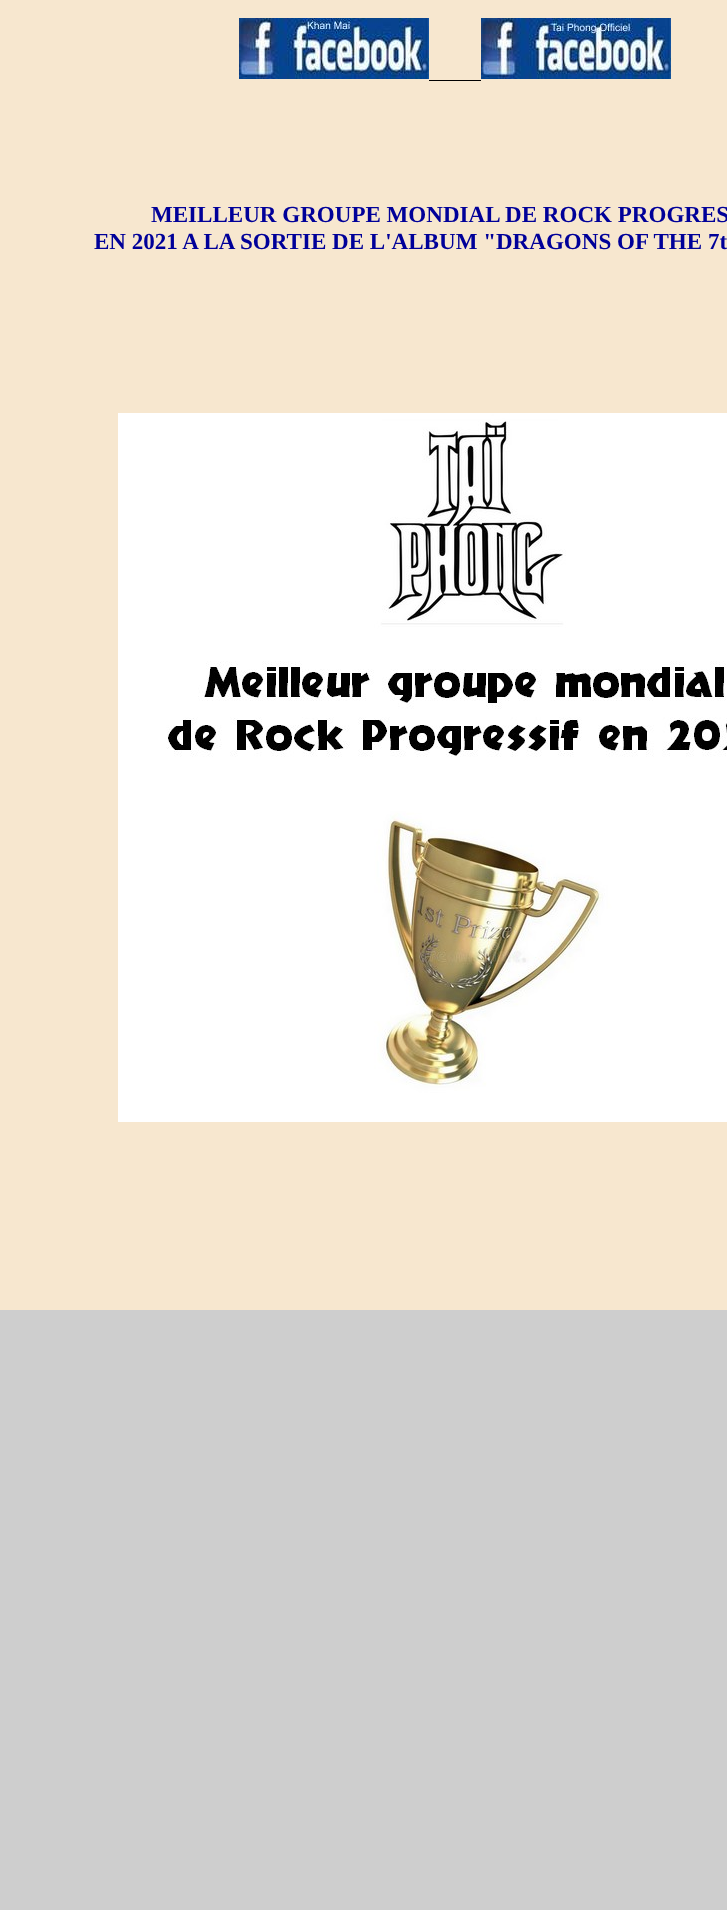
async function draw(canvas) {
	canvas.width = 727;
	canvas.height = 1910;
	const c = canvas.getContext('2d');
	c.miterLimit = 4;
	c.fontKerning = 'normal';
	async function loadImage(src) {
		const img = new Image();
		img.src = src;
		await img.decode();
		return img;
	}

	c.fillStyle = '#cecece';
	c.fillRect(0, 0, 727, 1910);
	c.fillStyle = '#f7e7cf';
	c.fillRect(0, 0, 727, 1310);
	c.drawImage(await loadImage('img1.png'), 239, 18, 190, 61);
	c.drawImage(await loadImage('img2.png'), 481, 18, 190, 61);
	c.fillStyle = '#000';
	c.fillRect(429, 80, 52, 1);
	c.font = 'bold 23.05px Liberation Serif';
	c.fillStyle = '#009';
	c.fillText('MEILLEUR GROUPE MONDIAL DE ROCK PROGRES', 151, 222);
	c.fillText('EN 2021 A LA SORTIE DE L\'ALBUM "DRAGONS OF THE 7t', 94, 249);
	c.drawImage(await loadImage('img3.png'), 118, 413, 609, 709);
}

draw(document.querySelector('canvas'));
